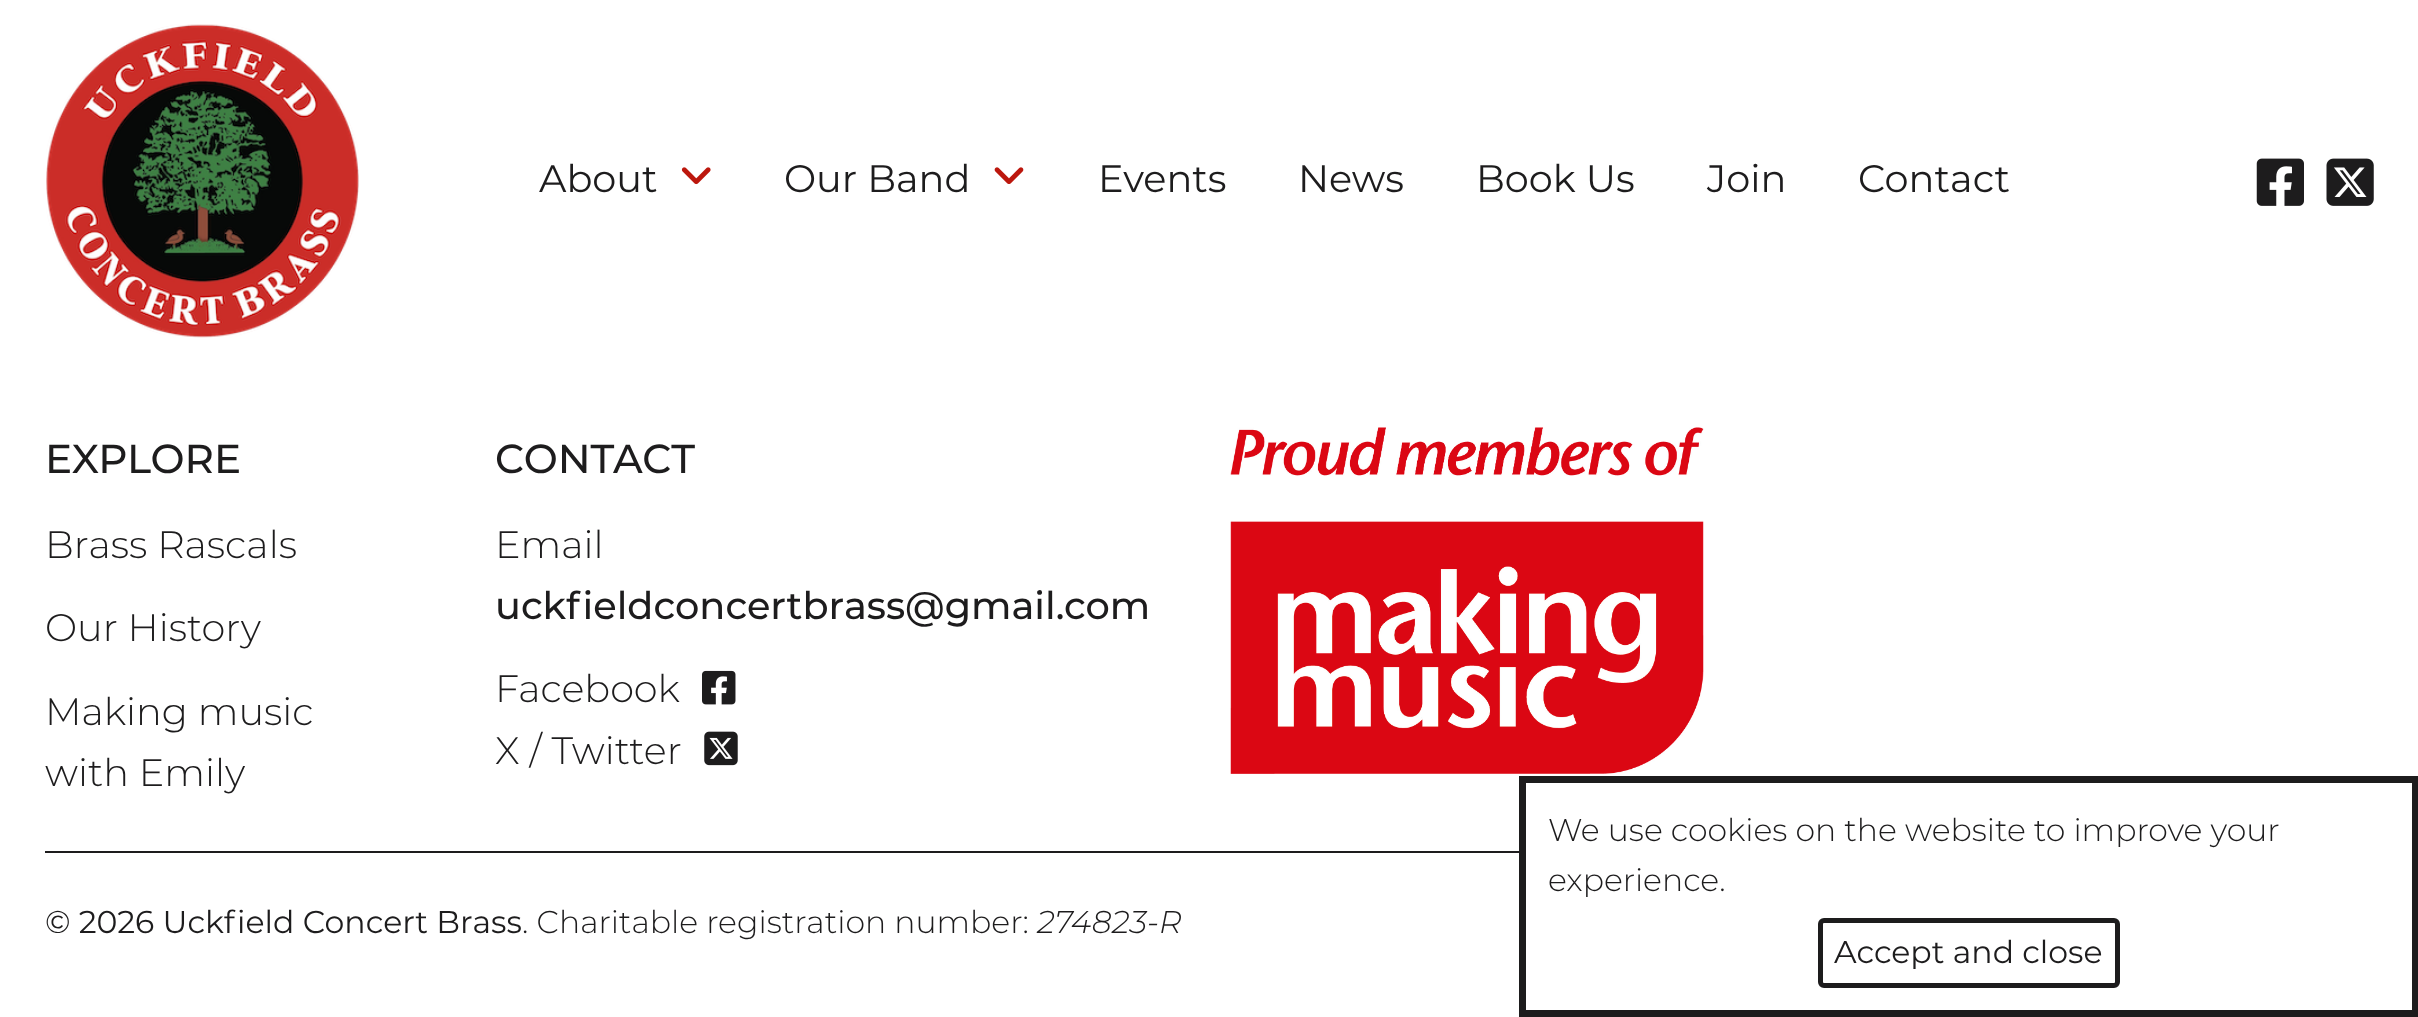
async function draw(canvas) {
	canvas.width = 2418;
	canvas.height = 1017;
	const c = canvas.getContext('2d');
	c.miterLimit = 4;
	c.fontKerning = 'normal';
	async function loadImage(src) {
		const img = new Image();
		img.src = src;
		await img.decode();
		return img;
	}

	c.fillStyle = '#fff';
	c.fillRect(0, 0, 2418, 1017);
	c.drawImage(await loadImage('img1.png'), 46, 24, 313, 314);
	c.font = '38.25px Montserrat';
	c.fillStyle = '#1d1c1d';
	c.fillText('About', 539, 192);
	c.drawImage(await loadImage('img2.png'), 681, 167, 30, 18);
	c.fillText('Our Band', 784, 192);
	c.drawImage(await loadImage('img3.png'), 994, 167, 30, 17);
	for (const [text, x, y] of [
		['Events', 1098, 192],
		['News', 1298, 192],
		['Book Us', 1476, 192],
		['Join', 1707, 192],
		['Contact', 1858, 192],
	]) {
		c.fillText(text, x, y);
	}
	c.drawImage(await loadImage('img4.png'), 2256, 158, 48, 48);
	c.drawImage(await loadImage('img5.png'), 2326, 158, 48, 48);
	c.font = '500 40.5px Montserrat';
	c.fillText('EXPLORE', 45, 473);
	c.font = '300 38.25px Montserrat';
	for (const [text, x, y] of [
		['Brass Rascals', 45, 558],
		['Our History', 45, 641],
		['Making music', 45, 725],
		['with Emily', 45, 786],
	]) {
		c.fillText(text, x, y);
	}
	c.font = '500 40.5px Montserrat';
	c.fillText('CONTACT', 495, 473);
	c.font = '300 38.25px Montserrat';
	c.fillText('Email', 495, 558);
	c.font = '500 38.25px Montserrat';
	c.fillText('uckfieldconcertbrass@gmail.com', 495, 619);
	c.font = '300 38.25px Montserrat';
	c.fillText('Facebook', 495, 702);
	c.drawImage(await loadImage('img6.png'), 702, 670, 34, 35);
	c.fillText('X / Twitter', 495, 764);
	c.drawImage(await loadImage('img7.png'), 704, 731, 34, 35);
	c.drawImage(await loadImage('img8.png'), 1230, 427, 474, 347);
	c.fillRect(45, 851, 1474, 2);
	c.font = '31.5px Montserrat';
	c.fillText('© 2026 Uckfield Concert Brass', 45, 933);
	c.font = '300 31.5px Montserrat';
	c.fillText('. Charitable registration number:', 522, 933);
	c.font = 'italic 300 31.5px Montserrat';
	c.fillText('274823-R', 1037, 933);
	c.strokeStyle = '#1d1c1d';
	c.lineWidth = 7;
	c.strokeRect(1522.5, 779.5, 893, 234);
	c.font = '300 31.5px Montserrat';
	c.fillText('We use cookies on the website to improve your', 1548, 841);
	c.fillText('experience.', 1548, 891);
	c.beginPath();
	c.roundRect(1820.5, 920.5, 297, 65, 3.5);
	c.lineWidth = 5;
	c.stroke();
	c.font = '31.5px Montserrat';
	c.fillText('Accept and close', 1834, 963);
}

draw(document.querySelector('canvas'));
